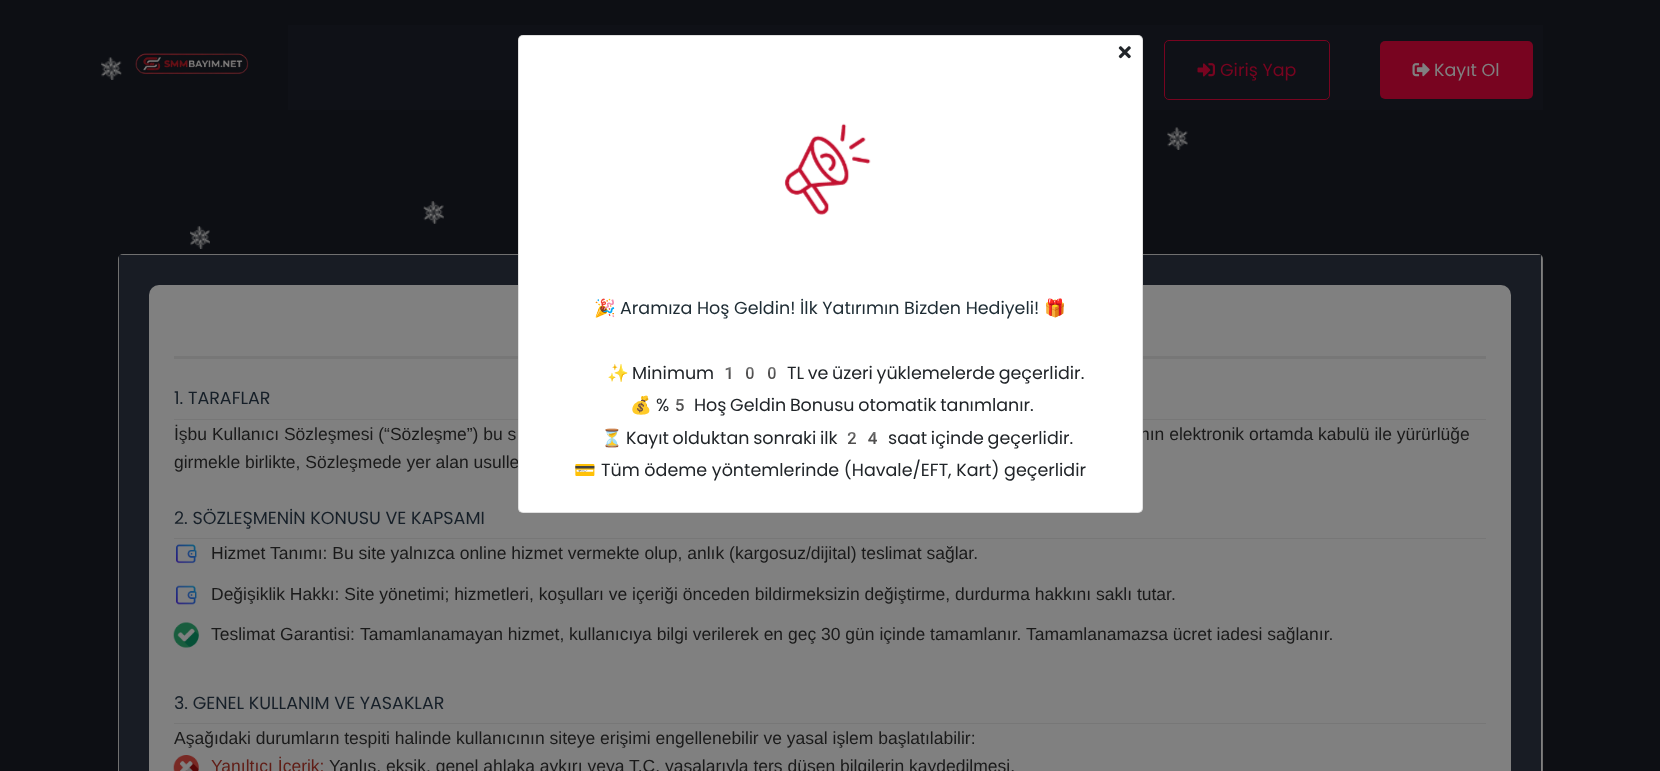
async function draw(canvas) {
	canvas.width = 1660;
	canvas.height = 771;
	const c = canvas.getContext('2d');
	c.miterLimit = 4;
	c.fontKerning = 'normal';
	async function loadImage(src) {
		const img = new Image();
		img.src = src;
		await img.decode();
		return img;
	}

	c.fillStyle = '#0d0f14';
	c.fillRect(0, 0, 1660, 771);
	c.drawImage(await loadImage('img1.png'), 101, 57, 21, 23);
	c.drawImage(await loadImage('img2.png'), 135, 53, 114, 22);
	c.fillStyle = '#0f1117';
	c.fillRect(288, 25, 1255, 85);
	c.beginPath();
	c.roundRect(1164.5, 40.5, 165, 59, 4.5);
	c.strokeStyle = '#780420';
	c.stroke();
	c.drawImage(await loadImage('img3.png'), 1197, 63, 18, 14);
	c.font = '17.5px Poppins';
	c.fillStyle = '#780420';
	c.fillText('Giriş Yap', 1220, 76);
	c.beginPath();
	c.roundRect(1380, 41, 153, 58, 5);
	c.fill();
	c.drawImage(await loadImage('img4.png'), 1412, 63, 18, 14);
	c.fillStyle = '#808080';
	c.fillText('Kayıt Ol', 1434, 76);
	c.drawImage(await loadImage('img5.png'), 1167, 127, 21, 23);
	c.drawImage(await loadImage('img6.png'), 423, 201, 21, 23);
	c.drawImage(await loadImage('img7.png'), 190, 226, 20, 23);
	c.beginPath();
	c.roundRect(118, 254, 1425, 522, 5);
	c.fill();
	c.beginPath();
	c.roundRect(118.5, 254.5, 1424, 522, 4.5);
	c.strokeStyle = '#0000001f';
	c.stroke();
	c.fillStyle = '#181c24';
	c.fillRect(119, 255, 1422, 516);
	c.fillStyle = '#808080';
	c.beginPath();
	c.roundRect(149, 285, 1362, 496, 10);
	c.fill();
	c.fillStyle = '#777';
	c.fillRect(174, 356, 1312, 3);
	c.fillRect(174, 419, 1312, 1);
	c.font = '17.5px Liberation Sans';
	c.fillStyle = '#1a1a1a';
	c.fillText('nın elektronik ortamda kabulü ile yürürlüğe', 1140, 440);
	c.fillText('girmekle birlikte, Sözleşmede yer alan usulle', 174, 468);
	c.fillStyle = '#fff';
	c.beginPath();
	c.roundRect(518, 35, 625, 478, 5);
	c.fill();
	c.beginPath();
	c.roundRect(518.5, 35.5, 624, 477, 4.5);
	c.stroke();
	c.drawImage(await loadImage('img8.png'), 1118, 46, 13, 13);
	c.drawImage(await loadImage('img9.png'), 784, 123, 87, 92);
	c.font = '17.5px Noto Color Emoji';
	c.fillStyle = '#1e2c34';
	c.fillText('🎉', 594, 314);
	c.font = '17.5px Poppins';
	c.fillText('Aramıza Hoş Geldin! İlk Yatırımın Bizden Hediyeli!', 620, 314);
	c.font = '17.5px Noto Color Emoji';
	c.fillText('🎁', 1044, 314);
	c.fillStyle = '#212529';
	c.fillText('✨', 607, 379);
	c.font = '17.5px Poppins';
	c.fillText('Minimum', 632, 379);
	c.font = '17.5px Noto Color Emoji';
	c.fillText('100', 718, 379);
	c.wordSpacing = '-1px';
	c.font = '17.5px Poppins';
	c.fillText('TL ve üzeri yüklemelerde geçerlidir.', 787, 379);
	c.wordSpacing = '0px';
	c.font = '17.5px Noto Color Emoji';
	c.fillText('💰', 630, 411);
	c.font = '17.5px Poppins';
	c.fillText('%', 656, 411);
	c.font = '17.5px Noto Color Emoji';
	c.fillText('5', 669, 411);
	c.wordSpacing = '-1px';
	c.font = '17.5px Poppins';
	c.fillText('Hoş Geldin Bonusu otomatik tanımlanır.', 694, 411);
	c.wordSpacing = '0px';
	c.font = '17.5px Noto Color Emoji';
	c.fillText('⏳', 601, 444);
	c.wordSpacing = '-1px';
	c.font = '17.5px Poppins';
	c.fillText('Kayıt olduktan sonraki ilk', 626, 444);
	c.wordSpacing = '0px';
	c.font = '17.5px Noto Color Emoji';
	c.fillText('24', 841, 444);
	c.wordSpacing = '-1px';
	c.font = '17.5px Poppins';
	c.fillText('saat içinde geçerlidir.', 888, 444);
	c.wordSpacing = '0px';
	c.font = '17.5px Noto Color Emoji';
	c.fillText('💳', 574, 476);
	c.font = '17.5px Poppins';
	c.fillText('Tüm ödeme yöntemlerinde (Havale/EFT, Kart) geçerlidir', 601, 476);
	c.fillStyle = '#161f28';
	c.fillText('1. TARAFLAR', 174, 404);
	c.font = '17.5px Liberation Sans';
	c.fillStyle = '#1a1a1a';
	c.fillText('İşbu Kullanıcı Sözleşmesi (“Sözleşme”) bu s', 174, 440);
	c.fillStyle = '#777';
	c.fillRect(174, 538, 1312, 1);
	c.font = '17.5px Poppins';
	c.fillStyle = '#161f28';
	c.fillText('2. SÖZLEŞMENİN KONUSU VE KAPSAMI', 174, 524);
	c.drawImage(await loadImage('img10.png'), 176, 544, 21, 20);
	c.font = '17.5px Liberation Sans';
	c.fillStyle = '#1a1a1a';
	c.fillText('Hizmet Tanımı: Bu site yalnızca online hizmet vermekte olup, anlık (kargosuz/dijital) teslimat sağlar.', 211, 559);
	c.drawImage(await loadImage('img11.png'), 176, 585, 21, 20);
	c.fillText('Değişiklik Hakkı: Site yönetimi; hizmetleri, koşulları ve içeriği önceden bildirmeksizin değiştirme, durdurma hakkını saklı tutar.', 211, 600);
	c.drawImage(await loadImage('img12.png'), 173, 622, 26, 26);
	c.fillText('Teslimat Garantisi:', 211, 640);
	c.fillText('Tamamlanamayan hizmet, kullanıcıya bilgi verilerek en geç 30 gün içinde tamamlanır. Tamamlanamazsa ücret iadesi sağlanır.', 360, 640);
	c.fillStyle = '#777';
	c.fillRect(174, 723, 1312, 1);
	c.font = '17.5px Poppins';
	c.fillStyle = '#161f28';
	c.fillText('3. GENEL KULLANIM VE YASAKLAR', 174, 709);
	c.font = '17.5px Liberation Sans';
	c.fillStyle = '#1a1a1a';
	c.fillText('Aşağıdaki durumların tespiti halinde kullanıcının siteye erişimi engellenebilir ve yasal işlem başlatılabilir:', 174, 744);
	c.drawImage(await loadImage('img13.png'), 173, 755, 26, 16);
	c.fillStyle = '#601d16';
	c.fillText('Yanıltıcı İçerik:', 211, 772);
	c.fillStyle = '#1a1a1a';
	c.fillText('Yanlış, eksik, genel ahlaka aykırı veya T.C. yasalarıyla ters düşen bilgilerin kaydedilmesi.', 329, 772);
}

draw(document.querySelector('canvas'));
